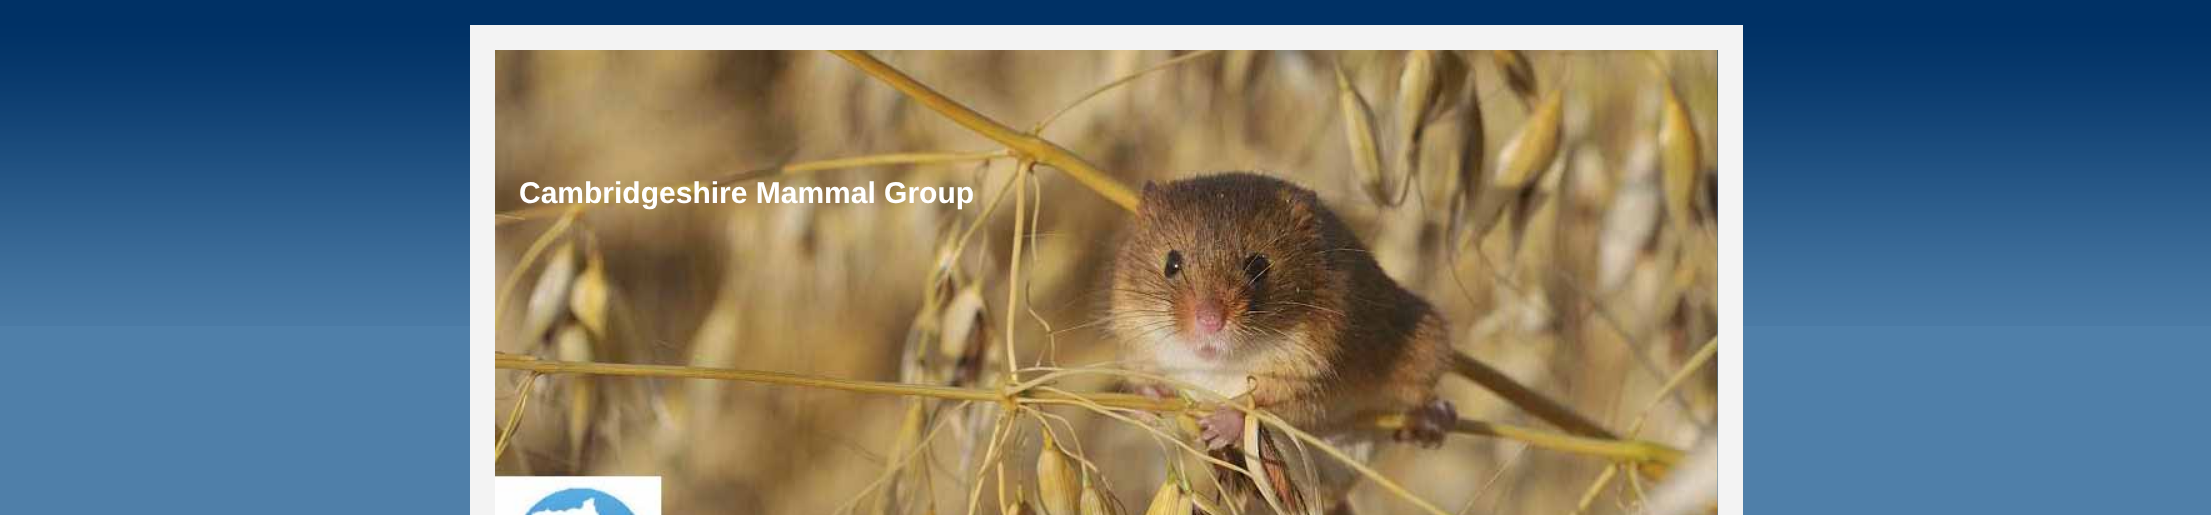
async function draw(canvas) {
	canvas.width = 2211;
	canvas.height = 515;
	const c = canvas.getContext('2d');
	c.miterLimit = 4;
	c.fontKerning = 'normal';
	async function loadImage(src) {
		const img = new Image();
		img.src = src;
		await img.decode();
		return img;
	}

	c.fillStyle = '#4f7fa9';
	c.fillRect(0, 0, 2211, 515);
	c.drawImage(await loadImage('img1.png'), 0, 0, 2211, 326);
	c.strokeStyle = '#f3f3f3';
	c.lineWidth = 25;
	c.strokeRect(482.5, 37.5, 1248, 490);
	c.drawImage(await loadImage('img2.png'), 495, 50, 1223, 465);
	c.font = 'bold 30px Liberation Sans';
	c.fillStyle = '#fff';
	c.fillText('Cambridgeshire Mammal Group', 519, 203);
}

draw(document.querySelector('canvas'));
